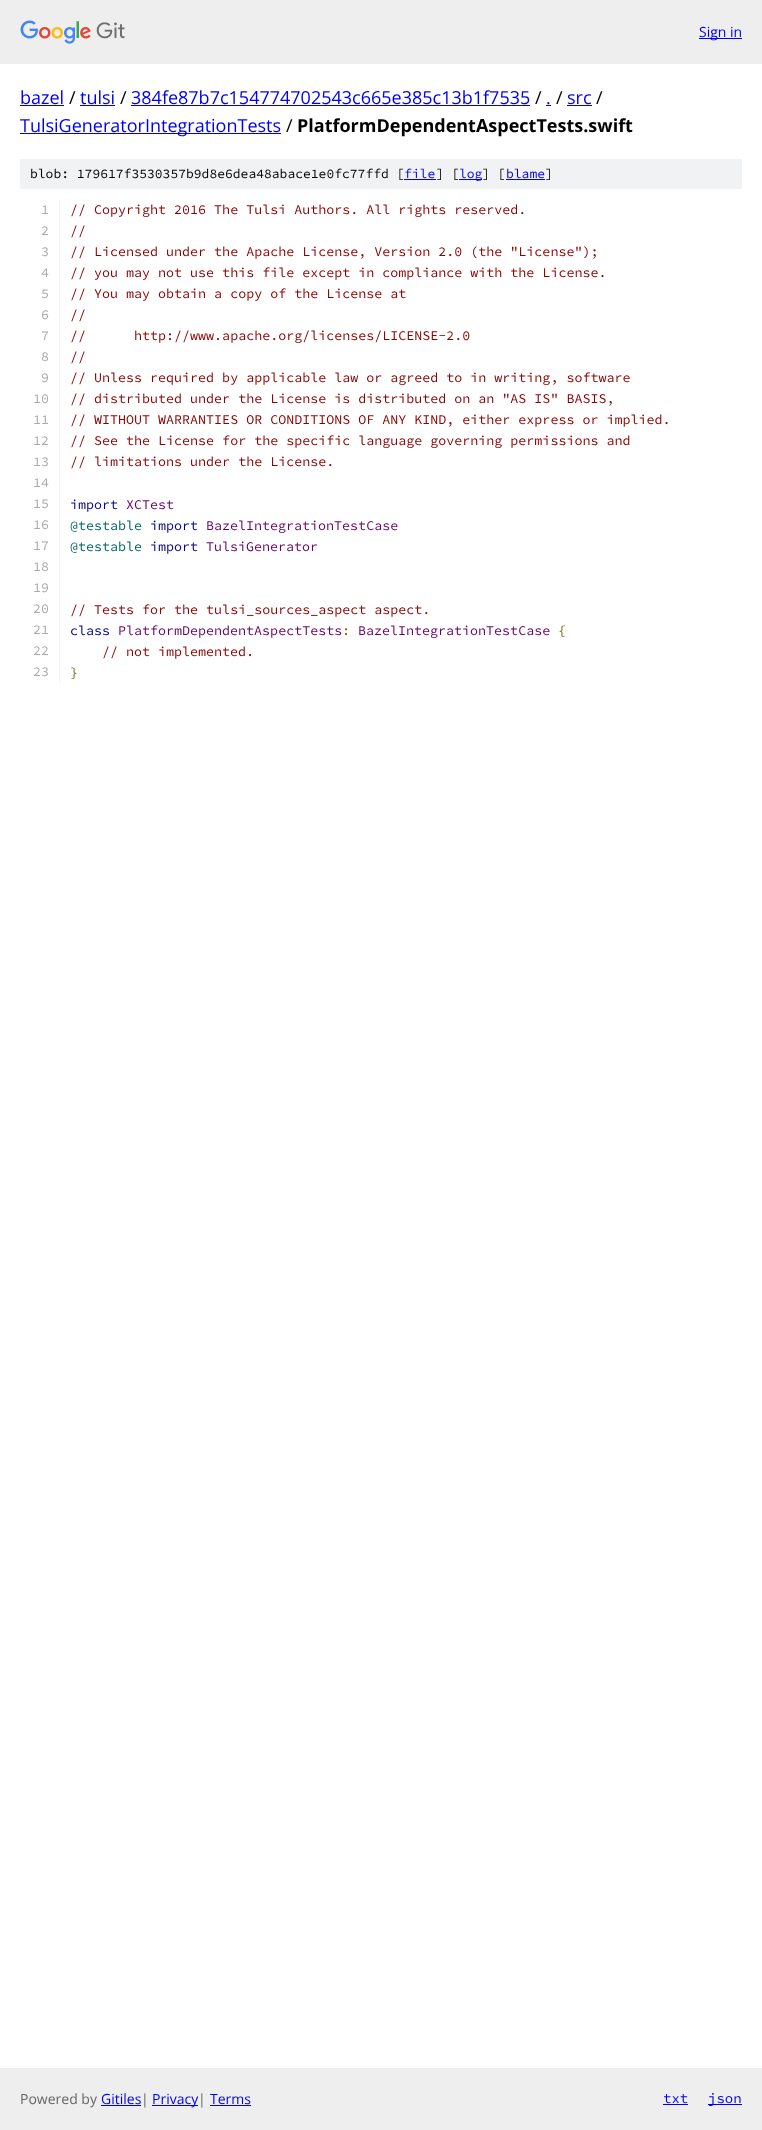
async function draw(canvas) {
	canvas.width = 762;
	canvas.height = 2130;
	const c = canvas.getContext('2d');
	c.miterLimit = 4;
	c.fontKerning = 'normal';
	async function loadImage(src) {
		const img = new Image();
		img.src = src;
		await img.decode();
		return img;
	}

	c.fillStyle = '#fff';
	c.fillRect(0, 0, 762, 2130);
	c.fillStyle = '#eee';
	c.fillRect(0, 0, 762, 64);
	c.drawImage(await loadImage('img1.png'), 20, 20, 105, 24);
	c.fillStyle = '#00e';
	c.fillRect(699, 38, 43, 1);
	c.font = '14px Open Sans';
	c.fillText('Sign in', 699, 37);
	c.font = '18px Open Sans';
	c.fillText('bazel', 20, 104);
	c.fillRect(20, 105, 44, 1);
	c.fillStyle = '#000';
	c.fillText('/', 69, 104);
	c.fillStyle = '#00e';
	c.fillText('tulsi', 80, 104);
	c.fillRect(80, 105, 35, 1);
	c.fillStyle = '#000';
	c.fillText('/', 120, 104);
	c.fillStyle = '#00e';
	c.fillText('384fe87b7c154774702543c665e385c13b1f7535', 131, 104);
	c.fillRect(131, 105, 399, 1);
	c.fillStyle = '#000';
	c.fillText('/', 535, 104);
	c.fillStyle = '#00e';
	c.fillText('.', 546, 104);
	c.fillRect(546, 105, 5, 1);
	c.fillStyle = '#000';
	c.fillText('/', 556, 104);
	c.fillStyle = '#00e';
	c.fillText('src', 567, 104);
	c.fillRect(567, 105, 25, 1);
	c.fillStyle = '#000';
	c.fillText('/', 596, 104);
	c.fillStyle = '#00e';
	c.fillRect(20, 133, 261, 1);
	c.fillText('TulsiGeneratorIntegrationTests', 20, 132);
	c.fillStyle = '#000';
	c.fillText('/', 286, 132);
	c.font = 'bold 18px Open Sans';
	c.fillText('PlatformDependentAspectTests.swift', 297, 132);
	c.fillStyle = '#f1f2f3';
	c.fillRect(20, 159, 722, 30);
	c.font = '200 13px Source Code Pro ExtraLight';
	c.fillStyle = '#000';
	c.fillText('blob: 179617f3530357b9d8e6dea48abace1e0fc77ffd [', 30, 178);
	c.fillStyle = '#00e';
	c.fillText('file', 404, 178);
	c.fillRect(404, 179, 32, 1);
	c.fillStyle = '#000';
	c.fillText('] [', 436, 178);
	c.fillStyle = '#00e';
	c.fillRect(459, 179, 23, 1);
	c.fillText('log', 459, 178);
	c.fillStyle = '#000';
	c.fillText('] [', 482, 178);
	c.fillStyle = '#00e';
	c.fillText('blame', 506, 178);
	c.fillRect(506, 179, 39, 1);
	c.fillStyle = '#000';
	c.fillText(']', 545, 178);
	c.fillStyle = '#f1f2f3';
	c.fillRect(59, 200, 1, 20);
	c.font = '200 13.35px Source Code Pro ExtraLight';
	c.fillStyle = '#aaa';
	c.fillText('1', 41, 214);
	c.fillStyle = '#800';
	c.fillText('// Copyright 2016 The Tulsi Authors. All rights reserved.', 70, 214);
	c.fillStyle = '#f1f2f3';
	c.fillRect(59, 221, 1, 20);
	c.fillStyle = '#aaa';
	c.fillText('2', 41, 235);
	c.fillStyle = '#800';
	c.fillText('//', 70, 235);
	c.fillStyle = '#f1f2f3';
	c.fillRect(59, 242, 1, 441);
	c.fillStyle = '#aaa';
	c.fillText('3', 41, 256);
	c.fillStyle = '#800';
	c.fillText('// Licensed under the Apache License, Version 2.0 (the "License");', 70, 256);
	c.fillStyle = '#aaa';
	c.fillText('4', 41, 277);
	c.fillStyle = '#800';
	c.fillText('// you may not use this file except in compliance with the License.', 70, 277);
	c.fillStyle = '#aaa';
	c.fillText('5', 41, 298);
	c.fillStyle = '#800';
	c.fillText('// You may obtain a copy of the License at', 70, 298);
	c.fillStyle = '#aaa';
	c.fillText('6', 41, 319);
	c.fillStyle = '#800';
	c.fillText('//', 70, 319);
	c.fillStyle = '#aaa';
	c.fillText('7', 41, 340);
	c.fillStyle = '#800';
	c.fillText('//      http://www.apache.org/licenses/LICENSE-2.0', 70, 340);
	c.fillStyle = '#aaa';
	c.fillText('8', 41, 361);
	c.fillStyle = '#800';
	c.fillText('//', 70, 361);
	c.fillStyle = '#aaa';
	c.fillText('9', 41, 382);
	c.fillStyle = '#800';
	c.fillText('// Unless required by applicable law or agreed to in writing, software', 70, 382);
	c.fillStyle = '#aaa';
	c.fillText('10', 33, 403);
	c.fillStyle = '#800';
	c.fillText('// distributed under the License is distributed on an "AS IS" BASIS,', 70, 403);
	c.fillStyle = '#aaa';
	c.fillText('11', 33, 424);
	c.fillStyle = '#800';
	c.fillText('// WITHOUT WARRANTIES OR CONDITIONS OF ANY KIND, either express or implied.', 70, 424);
	c.fillStyle = '#aaa';
	c.fillText('12', 33, 445);
	c.fillStyle = '#800';
	c.fillText('// See the License for the specific language governing permissions and', 70, 445);
	c.fillStyle = '#aaa';
	c.fillText('13', 33, 466);
	c.fillStyle = '#800';
	c.fillText('// limitations under the License.', 70, 466);
	c.fillStyle = '#aaa';
	c.fillText('14', 33, 487);
	c.fillText('15', 33, 508);
	c.fillStyle = '#008';
	c.fillText('import', 70, 509);
	c.fillStyle = '#606';
	c.fillText('XCTest', 126, 509);
	c.fillStyle = '#aaa';
	c.fillText('16', 33, 529);
	c.fillStyle = '#066';
	c.fillText('@testable', 70, 530);
	c.fillStyle = '#008';
	c.fillText('import', 150, 530);
	c.fillStyle = '#606';
	c.fillText('BazelIntegrationTestCase', 206, 530);
	c.fillStyle = '#aaa';
	c.fillText('17', 33, 550);
	c.fillStyle = '#066';
	c.fillText('@testable', 70, 551);
	c.fillStyle = '#008';
	c.fillText('import', 150, 551);
	c.fillStyle = '#606';
	c.fillText('TulsiGenerator', 206, 551);
	c.fillStyle = '#aaa';
	for (const [text, x, y] of [
		['18', 33, 571],
		['19', 33, 592],
		['20', 33, 613],
	]) {
		c.fillText(text, x, y);
	}
	c.fillStyle = '#800';
	c.fillText('// Tests for the tulsi_sources_aspect aspect.', 70, 614);
	c.fillStyle = '#aaa';
	c.fillText('21', 33, 634);
	c.fillStyle = '#008';
	c.fillText('class', 70, 635);
	c.fillStyle = '#606';
	c.fillText('PlatformDependentAspectTests', 118, 635);
	c.fillStyle = '#660';
	c.fillText(':', 342, 635);
	c.fillStyle = '#606';
	c.fillText('BazelIntegrationTestCase', 358, 635);
	c.fillStyle = '#660';
	c.fillText('{', 558, 635);
	c.fillStyle = '#aaa';
	c.fillText('22', 33, 655);
	c.fillStyle = '#800';
	c.fillText('// not implemented.', 102, 656);
	c.fillStyle = '#aaa';
	c.fillText('23', 33, 676);
	c.fillStyle = '#660';
	c.fillText('}', 70, 677);
	c.fillStyle = '#eee';
	c.fillRect(0, 2068, 762, 62);
	c.font = '14px Open Sans';
	c.fillStyle = '#666';
	c.fillText('Powered by', 20, 2104);
	c.fillStyle = '#00e';
	c.fillText('Gitiles', 101, 2104);
	c.fillRect(101, 2105, 40, 1);
	c.fillStyle = '#666';
	c.fillText('|', 141, 2104);
	c.fillStyle = '#00e';
	c.fillRect(152, 2105, 46, 1);
	c.fillText('Privacy', 152, 2104);
	c.fillStyle = '#666';
	c.fillText('|', 198, 2104);
	c.fillStyle = '#00e';
	c.fillText('Terms', 210, 2104);
	c.fillRect(210, 2105, 41, 1);
	c.font = '200 14px Source Code Pro ExtraLight';
	c.fillText('txt', 663, 2103);
	c.fillRect(663, 2104, 25, 1);
	c.fillRect(708, 2104, 34, 1);
	c.fillText('json', 708, 2103);
}

draw(document.querySelector('canvas'));
